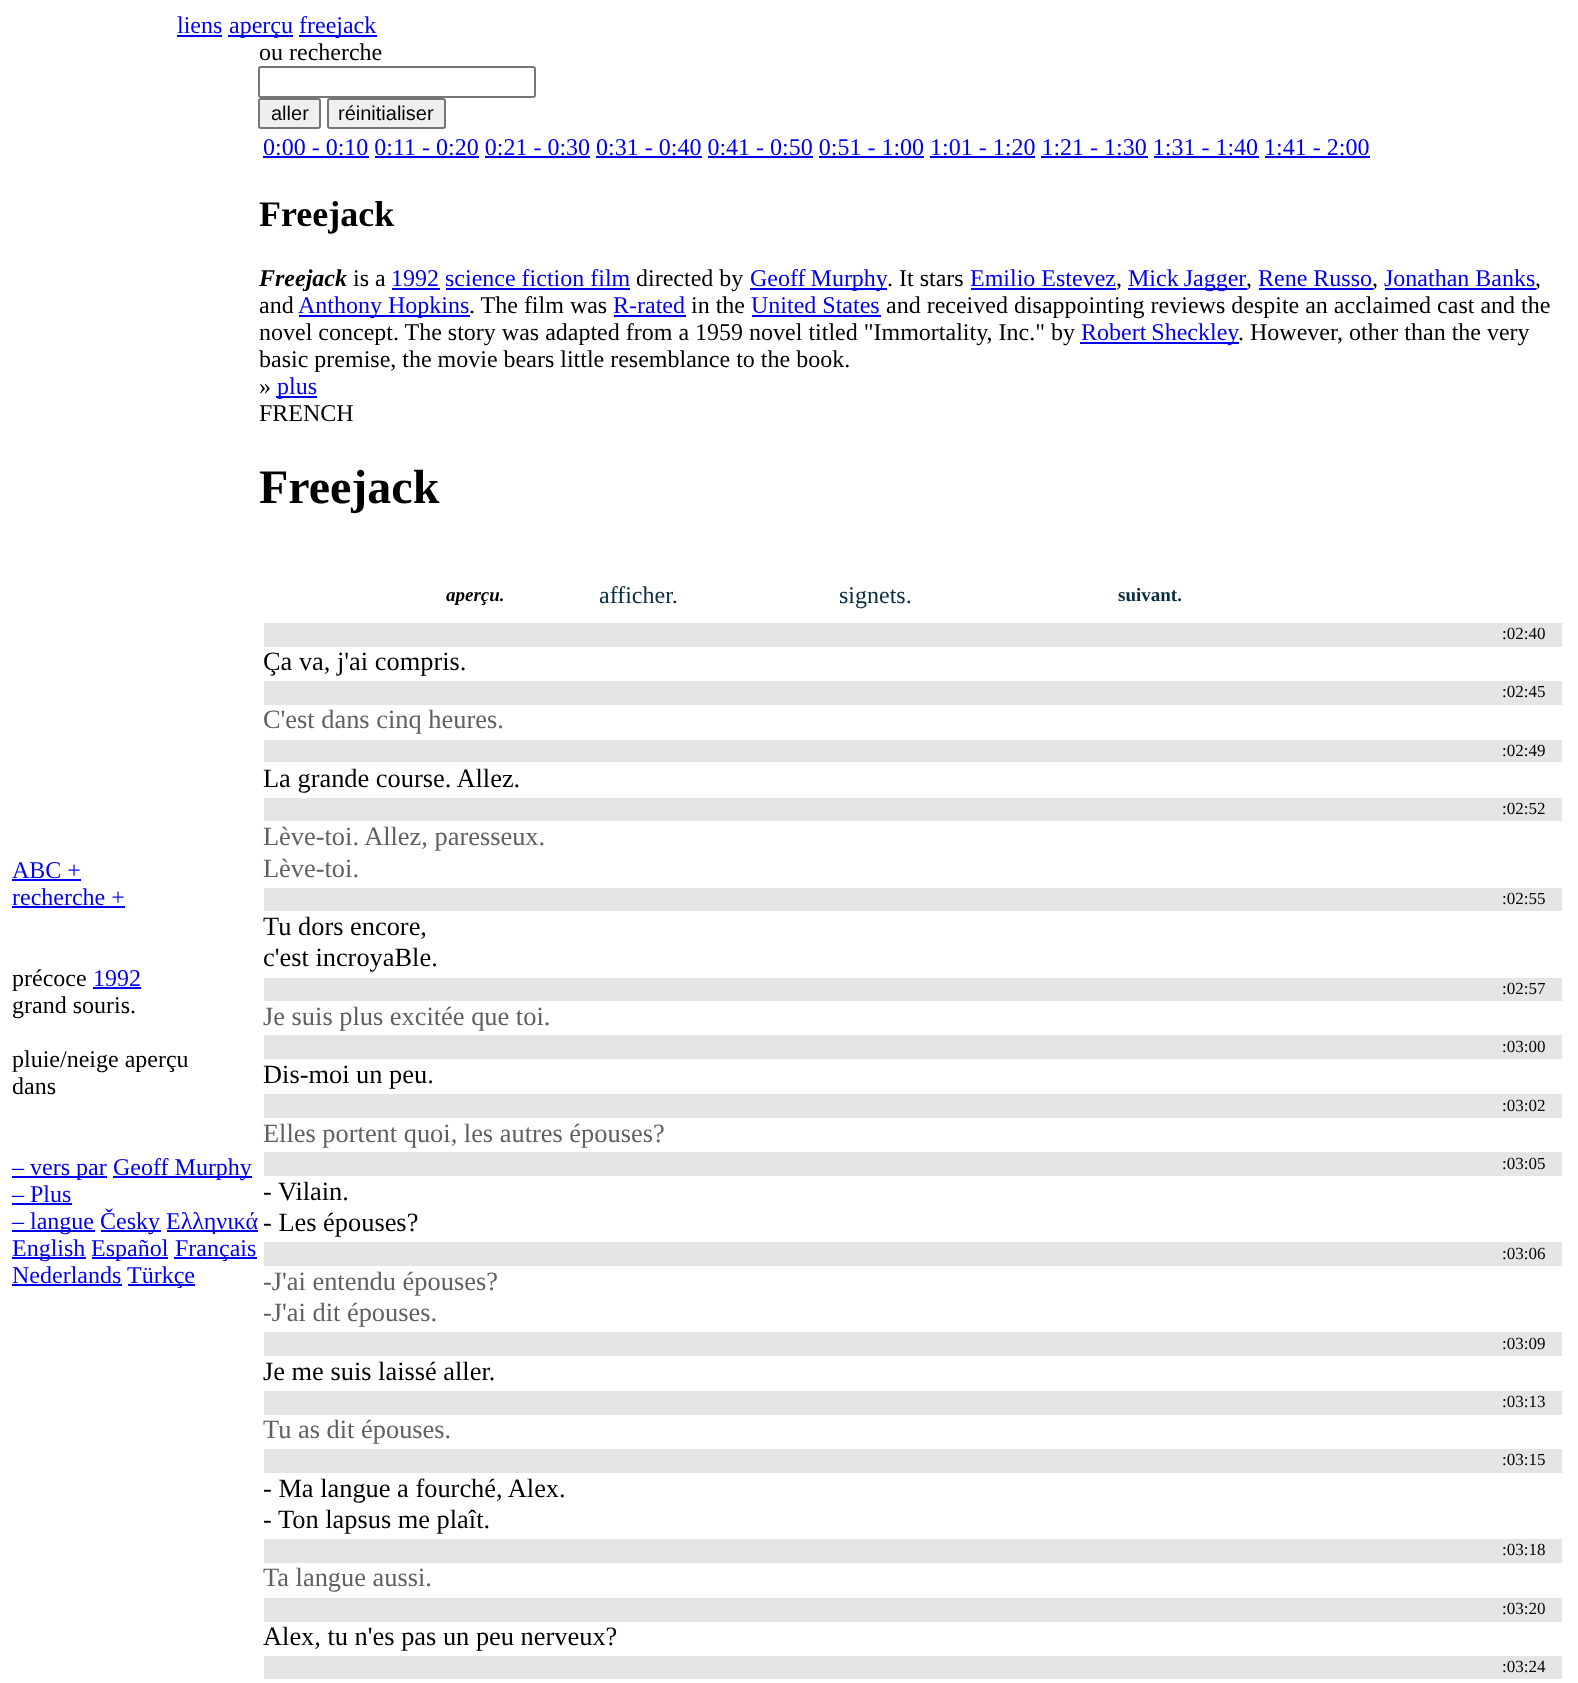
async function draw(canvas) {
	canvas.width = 1578;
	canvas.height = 1683;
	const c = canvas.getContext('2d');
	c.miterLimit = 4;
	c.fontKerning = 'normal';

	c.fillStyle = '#fff';
	c.fillRect(0, 0, 1578, 1683);
	c.font = '24px Liberation Serif';
	c.fillStyle = '#00e';
	c.fillText('liens', 177, 33);
	c.fillRect(177, 35, 45, 2);
	c.fillRect(228, 35, 65, 2);
	c.fillText('aperçu', 229, 33);
	c.fillRect(299, 35, 78, 2);
	c.fillText('freejack', 299, 33);
	c.fillText('ABC +', 12, 878);
	c.fillRect(12, 879, 69, 2);
	c.fillText('recherche +', 12, 905);
	c.fillRect(12, 906, 113, 2);
	c.fillStyle = '#000';
	c.fillText('précoce', 12, 986);
	c.fillStyle = '#00e';
	c.fillText('1992', 93, 986);
	c.fillRect(93, 987, 48, 2);
	c.fillStyle = '#000';
	for (const [text, x, y] of [
		['grand souris.', 12, 1013],
		['pluie/neige aperçu', 12, 1067],
		['dans', 12, 1094],
	]) {
		c.fillText(text, x, y);
	}
	c.fillStyle = '#00e';
	c.fillRect(12, 1176, 95, 2);
	c.fillText('– vers par', 12, 1175);
	c.fillRect(113, 1176, 139, 2);
	c.fillText('Geoff Murphy', 113, 1175);
	c.fillText('– Plus', 12, 1202);
	c.fillRect(12, 1203, 60, 2);
	c.fillRect(12, 1230, 83, 2);
	c.fillText('– langue', 12, 1229);
	c.fillRect(101, 1230, 60, 2);
	c.fillText('Česky', 100, 1229);
	c.fillRect(167, 1230, 91, 2);
	c.fillText('Ελληνικά', 166, 1229);
	c.fillRect(12, 1257, 74, 2);
	c.fillText('English', 12, 1256);
	c.fillRect(92, 1257, 76, 2);
	c.fillText('Español', 91, 1256);
	c.fillRect(174, 1257, 83, 2);
	c.fillText('Français', 175, 1256);
	c.fillText('Nederlands', 12, 1283);
	c.fillRect(12, 1284, 110, 2);
	c.fillRect(128, 1284, 67, 2);
	c.fillText('Türkçe', 127, 1283);
	c.fillStyle = '#000';
	c.fillText('ou recherche', 259, 60);
	c.beginPath();
	c.roundRect(259, 67, 276, 30, 2);
	c.strokeStyle = '#767676';
	c.lineWidth = 2;
	c.stroke();
	c.fillStyle = '#efefef';
	c.beginPath();
	c.roundRect(259, 99, 61, 29, 2);
	c.fill();
	c.stroke();
	c.font = '20px Liberation Sans';
	c.fillStyle = '#000';
	c.fillText('aller', 271, 120);
	c.fillStyle = '#efefef';
	c.beginPath();
	c.roundRect(328, 99, 117, 29, 2);
	c.fill();
	c.stroke();
	c.fillStyle = '#000';
	c.fillText('réinitialiser', 338, 120);
	c.font = '24px Liberation Serif';
	c.fillStyle = '#00e';
	c.fillText('0:00 - 0:10 0:11 - 0:20 0:21 - 0:30 0:31 - 0:40 0:41 - 0:50 0:51 - 1:00 1:01 - 1:20 1:21 - 1:30 1:31 - 1:40 1:41 - 2:00', 263, 155);
	for (const [x, y, w, h, color] of [
		[263, 156, 106, 2, '#00e'],
		[375, 156, 104, 2, '#00e'],
		[485, 156, 105, 2, '#00e'],
		[596, 156, 106, 2, '#00e'],
		[708, 156, 105, 2, '#00e'],
		[819, 156, 105, 2, '#00e'],
		[930, 156, 105, 2, '#00e'],
		[1041, 156, 107, 2, '#00e'],
		[1154, 156, 105, 2, '#00e'],
		[1265, 156, 105, 2, '#00e'],
	]) {
		c.fillStyle = color;
		c.fillRect(x, y, w, h);
	}
	c.font = 'bold 36px Liberation Serif';
	c.fillStyle = '#000';
	c.fillText('Freejack', 259, 226);
	c.font = 'italic bold 24px Liberation Serif';
	c.fillText('Freejack', 259, 286);
	c.font = '24px Liberation Serif';
	c.fillText('is a', 353, 286);
	c.fillStyle = '#00e';
	c.fillText('1992 science fiction film', 391, 286);
	c.fillRect(392, 288, 48, 2);
	c.fillRect(446, 288, 184, 2);
	c.fillStyle = '#000';
	c.fillText('directed by', 636, 286);
	c.fillStyle = '#00e';
	c.fillRect(750, 288, 137, 2);
	c.wordSpacing = '-1px';
	c.fillText('Geoff Murphy', 750, 286);
	c.wordSpacing = '0px';
	c.fillStyle = '#000';
	c.fillText('. It stars', 887, 286);
	c.fillStyle = '#00e';
	c.fillText('Emilio Estevez', 970, 286);
	c.fillStyle = '#000';
	c.fillText(',', 1116, 286);
	c.fillStyle = '#00e';
	c.fillRect(971, 288, 145, 2);
	c.fillRect(1128, 288, 119, 2);
	c.wordSpacing = '-1px';
	c.fillText('Mick Jagger', 1128, 286);
	c.wordSpacing = '0px';
	c.fillStyle = '#000';
	c.fillText(',', 1246, 286);
	c.fillStyle = '#00e';
	c.fillText('Rene Russo', 1258, 286);
	c.fillRect(1259, 288, 114, 2);
	c.fillStyle = '#000';
	c.fillText(',', 1372, 286);
	c.fillStyle = '#00e';
	c.fillText('Jonathan Banks', 1384, 286);
	c.fillStyle = '#000';
	c.fillText(',', 1535, 286);
	c.fillStyle = '#00e';
	c.fillRect(1385, 288, 151, 2);
	c.fillStyle = '#000';
	c.fillText('and', 259, 313);
	c.fillStyle = '#00e';
	c.fillRect(299, 315, 171, 2);
	c.fillText('Anthony Hopkins', 298, 313);
	c.fillStyle = '#000';
	c.fillText('. The film was', 469, 313);
	c.fillStyle = '#00e';
	c.fillText('R-rated', 613, 313);
	c.fillRect(614, 315, 72, 2);
	c.fillStyle = '#000';
	c.fillText('in the', 691, 313);
	c.fillStyle = '#00e';
	c.fillText('United States', 751, 313);
	c.fillRect(752, 315, 129, 2);
	c.fillStyle = '#000';
	c.fillText('and received disappointing reviews despite an acclaimed cast and the', 886, 313);
	c.fillText('novel concept. The story was adapted from a 1959 novel titled "Immortality, Inc." by', 259, 340);
	c.fillStyle = '#00e';
	c.fillRect(1080, 342, 159, 2);
	c.wordSpacing = '-1px';
	c.fillText('Robert Sheckley', 1081, 340);
	c.wordSpacing = '0px';
	c.fillStyle = '#000';
	for (const [text, x, y] of [
		['. However, other than the very', 1238, 340],
		['basic premise, the movie bears little resemblance to the book.', 259, 367],
		['»', 259, 394],
	]) {
		c.fillText(text, x, y);
	}
	c.fillStyle = '#00e';
	c.fillRect(276, 396, 41, 2);
	c.fillText('plus', 277, 394);
	c.fillStyle = '#000';
	c.fillText('FRENCH', 259, 421);
	c.font = 'bold 48px Liberation Serif';
	c.fillText('Freejack', 259, 503);
	c.font = 'italic bold 19px Liberation Serif';
	c.fillText('aperçu.', 446, 601);
	c.font = '24px Liberation Serif';
	c.fillStyle = '#0a2d40';
	c.fillText('afficher.', 599, 603);
	c.fillText('signets.', 839, 603);
	c.font = 'bold 19px Liberation Serif';
	c.fillText('suivant.', 1118, 601);
	c.fillStyle = '#e5e5e5';
	c.fillRect(264, 623, 1298, 24);
	c.font = '17px Liberation Serif';
	c.fillStyle = '#000';
	c.fillText(':02:40', 1502, 639);
	c.font = '26.4px Liberation Serif';
	c.fillText('Ça va, j\'ai compris.', 263, 670);
	c.fillStyle = '#e5e5e5';
	c.fillRect(264, 681, 1298, 24);
	c.font = '17px Liberation Serif';
	c.fillStyle = '#000';
	c.fillText(':02:45', 1502, 697);
	c.font = '26.4px Liberation Serif';
	c.fillStyle = '#606060';
	c.fillText('C\'est dans cinq heures.', 263, 728);
	c.fillStyle = '#e5e5e5';
	c.fillRect(264, 740, 1298, 22);
	c.font = '17px Liberation Serif';
	c.fillStyle = '#000';
	c.fillText(':02:49', 1502, 756);
	c.font = '26.4px Liberation Serif';
	c.fillText('La grande course. Allez.', 263, 787);
	c.fillStyle = '#e5e5e5';
	c.fillRect(264, 798, 1298, 23);
	c.font = '17px Liberation Serif';
	c.fillStyle = '#000';
	c.fillText(':02:52', 1502, 814);
	c.font = '26.4px Liberation Serif';
	c.fillStyle = '#606060';
	c.fillText('Lève-toi. Allez, paresseux.', 263, 845);
	c.fillText('Lève-toi.', 263, 877);
	c.fillStyle = '#e5e5e5';
	c.fillRect(264, 888, 1298, 23);
	c.font = '17px Liberation Serif';
	c.fillStyle = '#000';
	c.fillText(':02:55', 1502, 904);
	c.font = '26.4px Liberation Serif';
	c.fillText('Tu dors encore,', 263, 935);
	c.fillText('c\'est incroyaBle.', 263, 966);
	c.fillStyle = '#e5e5e5';
	c.fillRect(264, 978, 1298, 23);
	c.font = '17px Liberation Serif';
	c.fillStyle = '#000';
	c.fillText(':02:57', 1502, 994);
	c.font = '26.4px Liberation Serif';
	c.fillStyle = '#606060';
	c.fillText('Je suis plus excitée que toi.', 263, 1025);
	c.fillStyle = '#e5e5e5';
	c.fillRect(264, 1035, 1298, 24);
	c.font = '17px Liberation Serif';
	c.fillStyle = '#000';
	c.fillText(':03:00', 1502, 1052);
	c.font = '26.4px Liberation Serif';
	c.fillText('Dis-moi un peu.', 263, 1083);
	c.fillStyle = '#e5e5e5';
	c.fillRect(264, 1094, 1298, 24);
	c.font = '17px Liberation Serif';
	c.fillStyle = '#000';
	c.fillText(':03:02', 1502, 1111);
	c.font = '26.4px Liberation Serif';
	c.fillStyle = '#606060';
	c.fillText('Elles portent quoi, les autres épouses?', 263, 1142);
	c.fillStyle = '#e5e5e5';
	c.fillRect(264, 1152, 1298, 24);
	c.font = '17px Liberation Serif';
	c.fillStyle = '#000';
	c.fillText(':03:05', 1502, 1169);
	c.font = '26.4px Liberation Serif';
	c.fillText('- Vilain.', 263, 1200);
	c.fillText('- Les épouses?', 263, 1231);
	c.fillStyle = '#e5e5e5';
	c.fillRect(264, 1242, 1298, 24);
	c.font = '17px Liberation Serif';
	c.fillStyle = '#000';
	c.fillText(':03:06', 1502, 1259);
	c.font = '26.4px Liberation Serif';
	c.fillStyle = '#606060';
	c.fillText('-J\'ai entendu épouses?', 263, 1290);
	c.fillText('-J\'ai dit épouses.', 263, 1321);
	c.fillStyle = '#e5e5e5';
	c.fillRect(264, 1332, 1298, 24);
	c.font = '17px Liberation Serif';
	c.fillStyle = '#000';
	c.fillText(':03:09', 1502, 1349);
	c.font = '26.4px Liberation Serif';
	c.fillText('Je me suis laissé aller.', 263, 1380);
	c.fillStyle = '#e5e5e5';
	c.fillRect(264, 1391, 1298, 24);
	c.font = '17px Liberation Serif';
	c.fillStyle = '#000';
	c.fillText(':03:13', 1502, 1407);
	c.font = '26.4px Liberation Serif';
	c.fillStyle = '#606060';
	c.fillText('Tu as dit épouses.', 263, 1438);
	c.fillStyle = '#e5e5e5';
	c.fillRect(264, 1449, 1298, 24);
	c.font = '17px Liberation Serif';
	c.fillStyle = '#000';
	c.fillText(':03:15', 1502, 1465);
	c.font = '26.4px Liberation Serif';
	c.fillText('- Ma langue a fourché, Alex.', 263, 1497);
	c.fillText('- Ton lapsus me plaît.', 263, 1528);
	c.fillStyle = '#e5e5e5';
	c.fillRect(264, 1539, 1298, 24);
	c.font = '17px Liberation Serif';
	c.fillStyle = '#000';
	c.fillText(':03:18', 1502, 1555);
	c.font = '26.4px Liberation Serif';
	c.fillStyle = '#606060';
	c.fillText('Ta langue aussi.', 263, 1586);
	c.fillStyle = '#e5e5e5';
	c.fillRect(264, 1598, 1298, 24);
	c.font = '17px Liberation Serif';
	c.fillStyle = '#000';
	c.fillText(':03:20', 1502, 1614);
	c.font = '26.4px Liberation Serif';
	c.fillText('Alex, tu n\'es pas un peu nerveux?', 263, 1645);
	c.fillStyle = '#e5e5e5';
	c.fillRect(264, 1656, 1298, 23);
	c.font = '17px Liberation Serif';
	c.fillStyle = '#000';
	c.fillText(':03:24', 1502, 1672);
}

draw(document.querySelector('canvas'));
